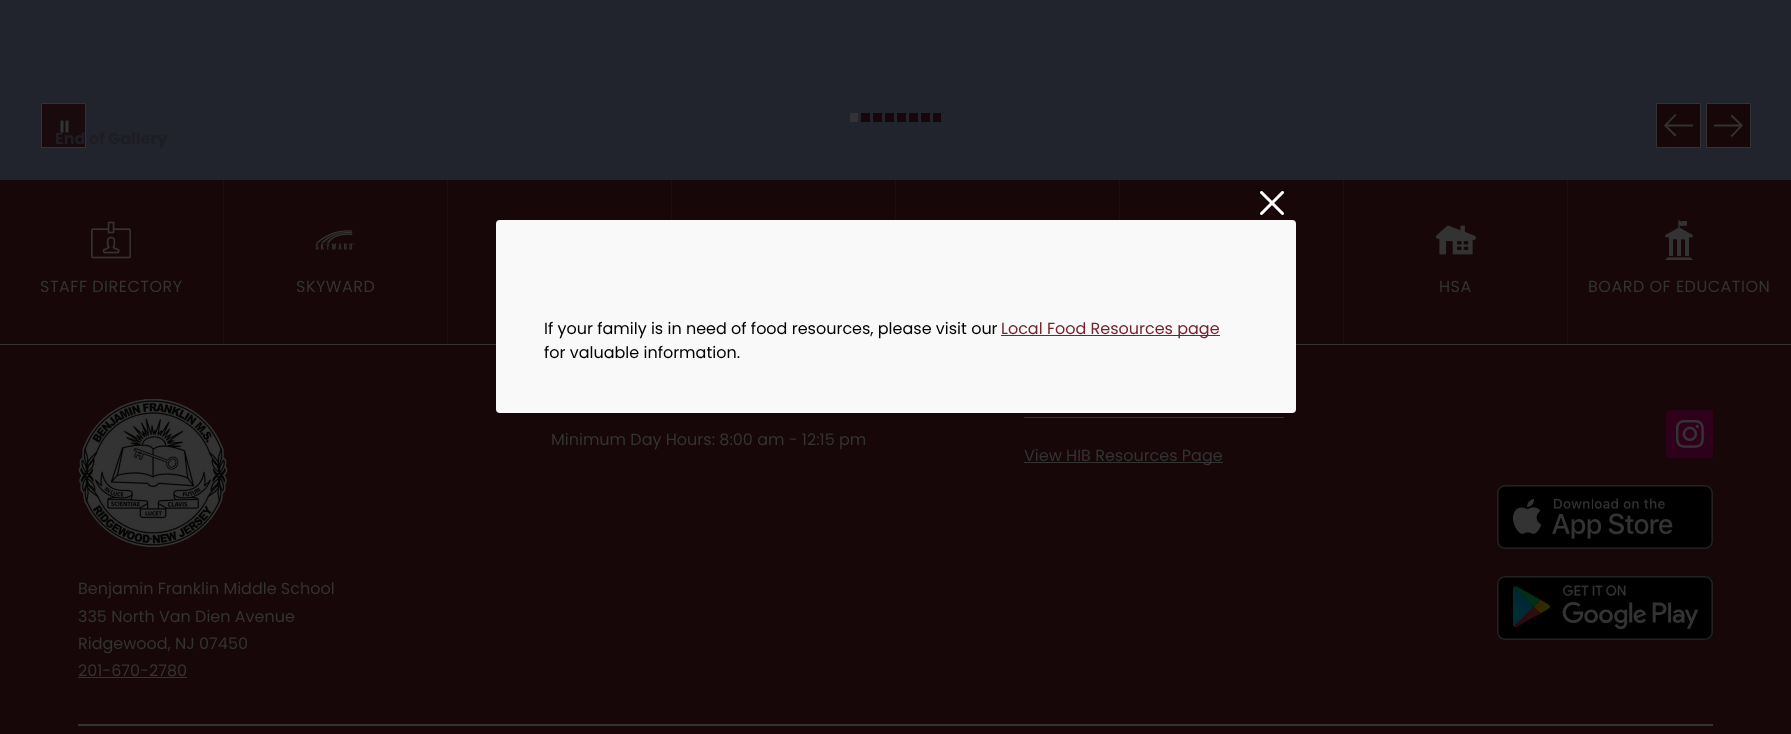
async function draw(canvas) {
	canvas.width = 1791;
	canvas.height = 734;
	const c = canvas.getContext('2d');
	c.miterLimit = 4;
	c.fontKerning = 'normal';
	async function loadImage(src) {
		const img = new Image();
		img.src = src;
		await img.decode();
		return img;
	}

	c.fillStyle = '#333';
	c.fillRect(0, 0, 1791, 734);
	c.fillStyle = '#22242d';
	c.fillRect(0, 0, 1791, 180);
	c.fillStyle = '#190a0d';
	c.fillRect(42, 104, 43, 43);
	c.beginPath();
	c.moveTo(41.5, 103.5);
	c.lineTo(85.5, 103.5);
	c.lineTo(85.5, 147.5);
	c.lineTo(41.5, 147.5);
	c.closePath();
	c.strokeStyle = '#333';
	c.stroke();
	c.fillStyle = '#333';
	c.beginPath();
	c.moveTo(63.5, 120.5);
	c.lineTo(60.5, 120.5);
	c.lineTo(60.5, 132.5);
	c.lineTo(63.5, 132.5);
	c.closePath();
	c.moveTo(68.5, 120.5);
	c.lineTo(65.5, 120.5);
	c.lineTo(65.5, 132.5);
	c.lineTo(68.5, 132.5);
	c.closePath();
	c.fill('evenodd');
	for (const [x, y, w, h, color] of [
		[850, 113, 8, 9, '#333'],
		[861, 113, 9, 9, '#180709'],
		[873, 113, 9, 9, '#180709'],
		[885, 113, 9, 9, '#180709'],
		[897, 113, 9, 9, '#180709'],
		[909, 113, 9, 9, '#180709'],
		[921, 113, 9, 9, '#180709'],
		[933, 113, 8, 9, '#180709'],
		[1657, 104, 43, 43, '#180709'],
	]) {
		c.fillStyle = color;
		c.fillRect(x, y, w, h);
	}
	c.beginPath();
	c.moveTo(1700.5, 147.5);
	c.lineTo(1656.5, 147.5);
	c.lineTo(1656.5, 103.5);
	c.lineTo(1700.5, 103.5);
	c.closePath();
	c.stroke();
	c.fillStyle = '#333';
	c.beginPath();
	c.moveTo(1675, 136.5);
	c.lineTo(1664, 125.5);
	c.lineTo(1675, 114);
	c.lineTo(1676.5, 115);
	c.lineTo(1667.5, 124.5);
	c.lineTo(1693, 124.5);
	c.lineTo(1693, 126.5);
	c.lineTo(1667.5, 126.5);
	c.lineTo(1676.5, 135);
	c.closePath();
	c.fill();
	c.fillStyle = '#180709';
	c.fillRect(1707, 104, 43, 43);
	c.beginPath();
	c.moveTo(1706.5, 103.5);
	c.lineTo(1750.5, 103.5);
	c.lineTo(1750.5, 147.5);
	c.lineTo(1706.5, 147.5);
	c.closePath();
	c.stroke();
	c.fillStyle = '#333';
	c.beginPath();
	c.moveTo(1732, 114.5);
	c.lineTo(1743, 125.5);
	c.lineTo(1732, 137);
	c.lineTo(1730.5, 136);
	c.lineTo(1739.5, 126.5);
	c.lineTo(1714, 126.5);
	c.lineTo(1714, 124.5);
	c.lineTo(1739.5, 124.5);
	c.lineTo(1730.5, 116);
	c.closePath();
	c.fill();
	c.font = 'bold 16px Poppins';
	c.fillStyle = '#1f1d24';
	c.fillText('End of Gallery', 55, 144);
	c.fillStyle = '#180709';
	c.fillRect(0, 180, 223, 164);
	c.drawImage(await loadImage('img1.png'), 91, 221, 40, 38);
	c.letterSpacing = '0.5px';
	c.font = '16px Poppins';
	c.fillStyle = '#333';
	c.fillText('STAFF DIRECTORY', 40, 292);
	c.fillStyle = '#180709';
	c.fillRect(224, 180, 223, 164);
	c.fillStyle = '#1c0e10';
	c.fillRect(223, 180, 1, 164);
	c.drawImage(await loadImage('img2.png'), 315, 230, 40, 20);
	c.fillStyle = '#333';
	c.fillText('SKYWARD', 296, 292);
	for (const [x, y, w, h, color] of [
		[448, 180, 223, 164, '#180709'],
		[447, 180, 1, 164, '#1c0e10'],
		[672, 180, 223, 40, '#180709'],
		[671, 180, 1, 40, '#1c0e10'],
		[896, 180, 223, 40, '#180709'],
		[895, 180, 1, 40, '#1c0e10'],
		[1120, 180, 223, 164, '#180709'],
		[1119, 180, 1, 40, '#1c0e10'],
		[1344, 180, 223, 164, '#180709'],
		[1343, 180, 1, 164, '#1c0e10'],
	]) {
		c.fillStyle = color;
		c.fillRect(x, y, w, h);
	}
	c.drawImage(await loadImage('img3.png'), 1436, 225, 40, 30);
	c.fillStyle = '#333';
	c.fillText('HSA', 1439, 292);
	c.fillStyle = '#180709';
	c.fillRect(1568, 180, 223, 164);
	c.fillStyle = '#1c0e10';
	c.fillRect(1567, 180, 1, 164);
	c.drawImage(await loadImage('img4.png'), 1665, 220, 28, 40);
	c.fillStyle = '#333';
	c.fillText('BOARD OF EDUCATION', 1588, 292);
	c.drawImage(await loadImage('img5.png'), 1260, 191, 24, 24);
	c.fillStyle = '#180709';
	c.fillRect(0, 345, 1791, 389);
	c.fillStyle = '#f9f9f9';
	c.beginPath();
	c.roundRect(496, 220, 800, 193, 4);
	c.fill();
	c.letterSpacing = '0px';
	c.fillStyle = '#000';
	c.fillText('If your family is in need of food resources, please visit our', 544, 334);
	c.fillStyle = '#76232f';
	c.fillRect(1001, 335, 219, 1);
	c.fillText('Local Food Resources page', 1001, 334);
	c.fillStyle = '#000';
	c.fillText('for valuable information.', 544, 358);
	c.fillStyle = '#333';
	c.fillText('Minimum Day Hours: 8:00 am - 12:15 pm', 551, 445);
	c.drawImage(await loadImage('img6.png'), 1666, 410, 47, 48);
	c.drawImage(await loadImage('img7.png'), 1497, 485, 216, 64);
	c.drawImage(await loadImage('img8.png'), 1497, 576, 216, 64);
	c.fillRect(1024, 417, 260, 1);
	c.fillRect(1024, 462, 199, 1);
	c.fillText('View HIB Resources Page', 1024, 461);
	c.drawImage(await loadImage('img9.png'), 78, 399, 150, 148);
	for (const [text, x, y] of [
		['Benjamin Franklin Middle School', 78, 594],
		['335 North Van Dien Avenue', 78, 622],
		['Ridgewood, NJ 07450', 78, 649],
		['201-670-2780', 78, 676],
	]) {
		c.fillText(text, x, y);
	}
	c.fillRect(78, 677, 109, 1);
	c.fillRect(78, 724, 1635, 2);
}

draw(document.querySelector('canvas'));
